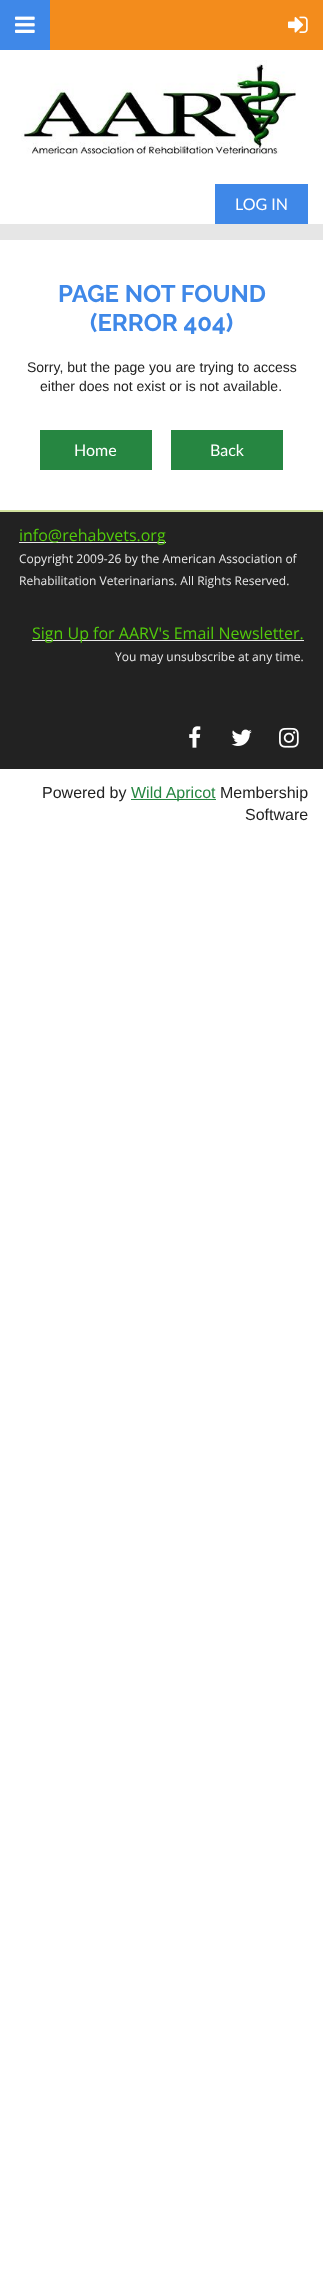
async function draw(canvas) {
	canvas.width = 323;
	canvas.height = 2292;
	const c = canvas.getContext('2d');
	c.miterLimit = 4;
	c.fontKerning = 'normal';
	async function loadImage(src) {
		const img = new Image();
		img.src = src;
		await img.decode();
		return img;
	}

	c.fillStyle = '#fff';
	c.fillRect(0, 0, 323, 2292);
	c.fillStyle = '#f38c1c';
	c.fillRect(50, 0, 273, 50);
	c.fillStyle = '#3f88e8';
	c.fillRect(0, 0, 50, 50);
	c.drawImage(await loadImage('img1.png'), 15, 16, 20, 17);
	c.drawImage(await loadImage('img2.png'), 288, 16, 20, 17);
	c.drawImage(await loadImage('img3.png'), 21, 60, 275, 96);
	c.fillRect(215, 184, 93, 40);
	c.font = '16px Lato';
	c.fillStyle = '#fff';
	c.fillText('LOG IN', 235, 210);
	c.fillStyle = '#e6e6e6';
	c.fillRect(0, 224, 323, 16);
	c.font = 'bold 24px Raleway';
	c.fillStyle = '#3f88e8';
	c.fillText('PAGE NOT FOUND', 58, 302);
	c.fillText('(ERROR 404)', 90, 331);
	c.font = '14px Liberation Sans';
	c.fillStyle = '#222';
	c.fillText('Sorry, but the page you are trying to access', 27, 372);
	c.fillText('either does not exist or is not available.', 40, 391);
	c.fillStyle = '#268641';
	c.fillRect(40, 430, 112, 40);
	c.font = '16px Lato';
	c.fillStyle = '#fff';
	c.fillText('Home', 74, 456);
	c.fillStyle = '#268641';
	c.fillRect(171, 430, 112, 40);
	c.fillStyle = '#fff';
	c.fillText('Back', 210, 456);
	for (const [x, y, w, h, color] of [
		[0, 510, 323, 2, '#d1e19d'],
		[0, 512, 323, 257, '#222'],
		[19, 542, 147, 1, '#e9e9e9'],
	]) {
		c.fillStyle = color;
		c.fillRect(x, y, w, h);
	}
	c.font = '16px Open Sans';
	c.fillStyle = '#53ca0c';
	c.fillText('info@rehabvets.org', 19, 541);
	c.font = '12px Open Sans';
	c.fillStyle = '#e9e9e9';
	c.fillText('Copyright 2009-26 by the American Association of', 19, 563);
	c.fillText('Rehabilitation Veterinarians. All Rights Reserved.', 19, 585);
	c.fillRect(32, 640, 272, 1);
	c.font = '16px Open Sans';
	c.fillStyle = '#53ca0c';
	c.fillText('Sign Up for AARV\'s Email Newsletter.', 32, 639);
	c.font = '12px Open Sans';
	c.fillStyle = '#e9e9e9';
	c.fillText('You may unsubscribe at any time.', 115, 661);
	c.drawImage(await loadImage('img4.png'), 189, 726, 12, 22);
	c.drawImage(await loadImage('img5.png'), 231, 729, 21, 17);
	c.drawImage(await loadImage('img6.png'), 279, 727, 20, 21);
	c.font = '16px Liberation Sans';
	c.fillStyle = '#222';
	c.fillText('Powered by', 42, 798);
	c.fillStyle = '#268641';
	c.fillRect(131, 799, 85, 1);
	c.fillText('Wild Apricot', 131, 798);
	c.fillStyle = '#222';
	c.fillText('Membership', 220, 798);
	c.fillText('Software', 245, 820);
}

draw(document.querySelector('canvas'));
